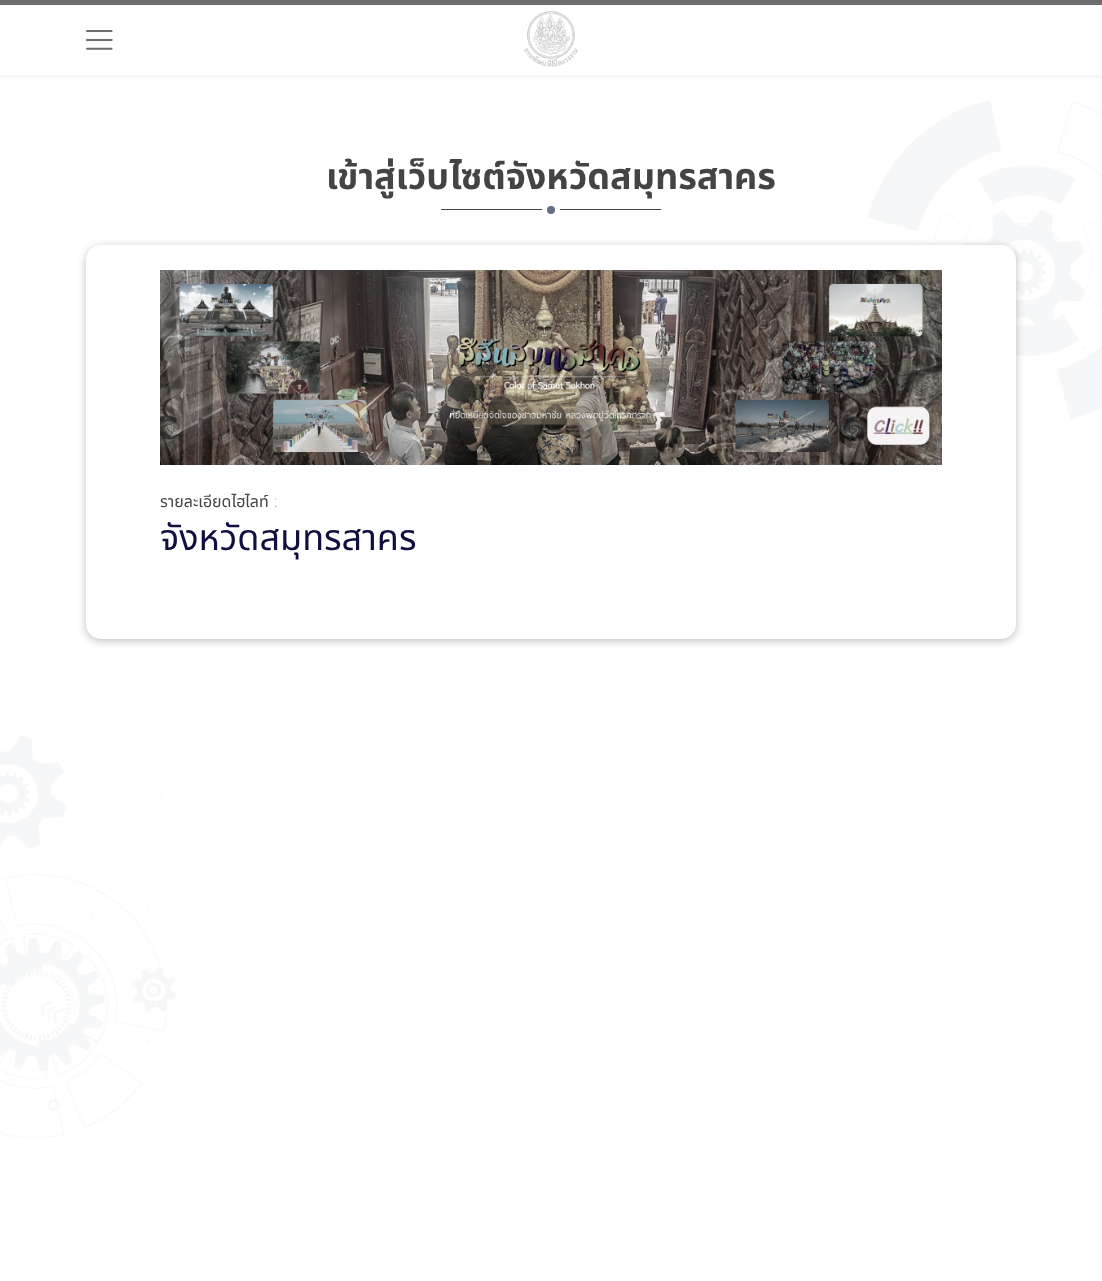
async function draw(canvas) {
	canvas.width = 1102;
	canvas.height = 1281;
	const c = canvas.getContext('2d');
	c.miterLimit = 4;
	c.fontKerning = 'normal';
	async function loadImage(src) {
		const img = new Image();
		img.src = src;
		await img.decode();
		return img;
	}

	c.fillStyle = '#fff';
	c.fillRect(0, 0, 1102, 1281);
	c.save();
	c.beginPath();
	c.rect(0, 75, 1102, 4);
	c.clip();
	c.fillStyle = '#56565612';
	c.filter = 'blur(2px)';
	c.beginPath();
	c.rect(0, 3, 1102, 75);
	c.fill();
	c.filter = 'none';
	c.restore();
	c.fillStyle = '#6d6d6d';
	c.fillRect(0, 0, 1102, 5);
	c.drawImage(await loadImage('img1.png'), 86, 30, 27, 20);
	c.drawImage(await loadImage('img2.png'), 523, 11, 56, 56);
	c.drawImage(await loadImage('img3.png'), 0, 100, 1102, 1038);
	c.font = 'bold 36px Noto Sans Thai';
	c.fillStyle = '#444';
	c.fillText('เข้าสู่เว็บไซต์จังหวัดสมุทรสาคร', 326, 189);
	c.fillRect(441, 209, 220, 1);
	c.fillStyle = '#616e83';
	c.beginPath();
	c.arc(551, 210, 6.5, 0, 2 * Math.PI);
	c.fill();
	c.strokeStyle = '#fff';
	c.lineWidth = 5;
	c.stroke();
	c.fillStyle = '#00000040';
	c.filter = 'blur(4px)';
	c.beginPath();
	c.roundRect(86, 247, 930, 394, 15);
	c.fill();
	c.filter = 'none';
	c.fillStyle = '#fff';
	c.beginPath();
	c.roundRect(86, 245, 930, 394, 15);
	c.fill();
	c.drawImage(await loadImage('img4.png'), 160, 270, 782, 195);
	c.font = '16px Noto Sans Thai';
	c.fillStyle = '#444';
	c.fillText('รายละเอียดไฮไลท์', 160, 507);
	c.font = '100 16px Noto Sans';
	c.fillText(':', 274, 507);
	c.font = '36px Noto Sans Thai';
	c.fillStyle = '#0f0f42';
	c.fillText('จังหวัดสมุทรสาคร', 160, 550);
}

draw(document.querySelector('canvas'));
